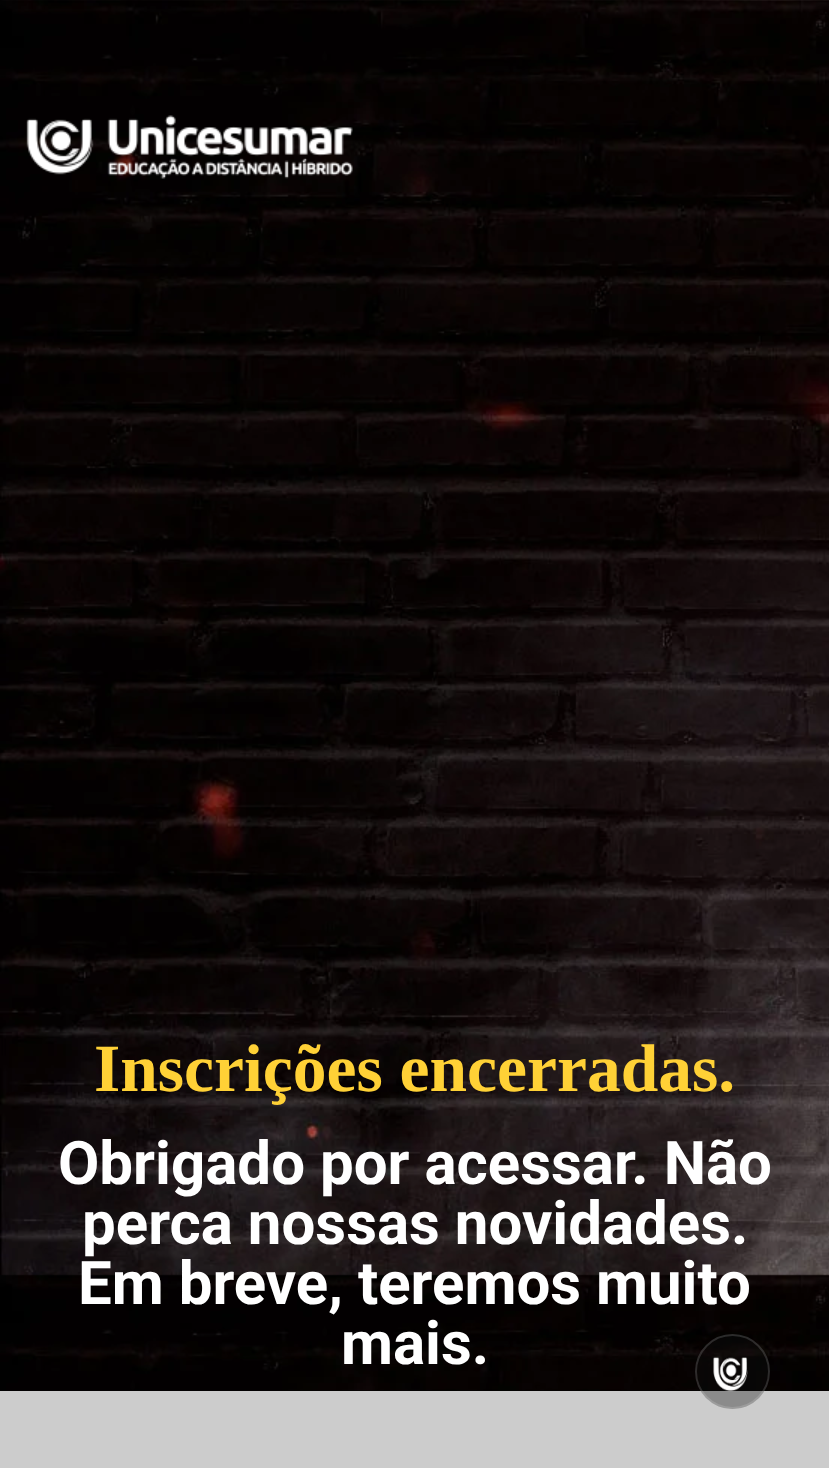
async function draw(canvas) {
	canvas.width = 829;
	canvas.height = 1468;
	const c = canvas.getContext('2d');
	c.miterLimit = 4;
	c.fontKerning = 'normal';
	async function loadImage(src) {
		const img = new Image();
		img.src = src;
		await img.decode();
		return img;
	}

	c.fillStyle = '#ccc';
	c.fillRect(0, 0, 829, 1468);
	c.fillStyle = '#000';
	c.fillRect(0, 1390, 829, 1);
	c.drawImage(await loadImage('img1.png'), 0, 0, 829, 1391);
	c.drawImage(await loadImage('img2.png'), 26, 115, 327, 64);
	c.font = 'bold 67.5px Liberation Serif';
	c.fillStyle = '#ffd136';
	c.fillText('Inscrições encerradas.', 94, 1091);
	c.font = 'bold 60px Roboto';
	c.fillStyle = '#fff';
	for (const [text, x, y] of [
		['Obrigado por acessar. Não', 58, 1184],
		['perca nossas novidades.', 82, 1244],
		['Em breve, teremos muito', 78, 1304],
		['mais.', 341, 1364],
	]) {
		c.fillText(text, x, y);
	}
	c.fillStyle = '#10101059';
	c.beginPath();
	c.arc(732.5, 1371.5, 37.5, 0, 2 * Math.PI);
	c.fill();
	c.beginPath();
	c.arc(732.5, 1371.5, 36.5, 0, 2 * Math.PI);
	c.strokeStyle = '#ffffff26';
	c.lineWidth = 2;
	c.stroke();
	c.drawImage(await loadImage('img3.png'), 713, 1357, 35, 35);
}

draw(document.querySelector('canvas'));
